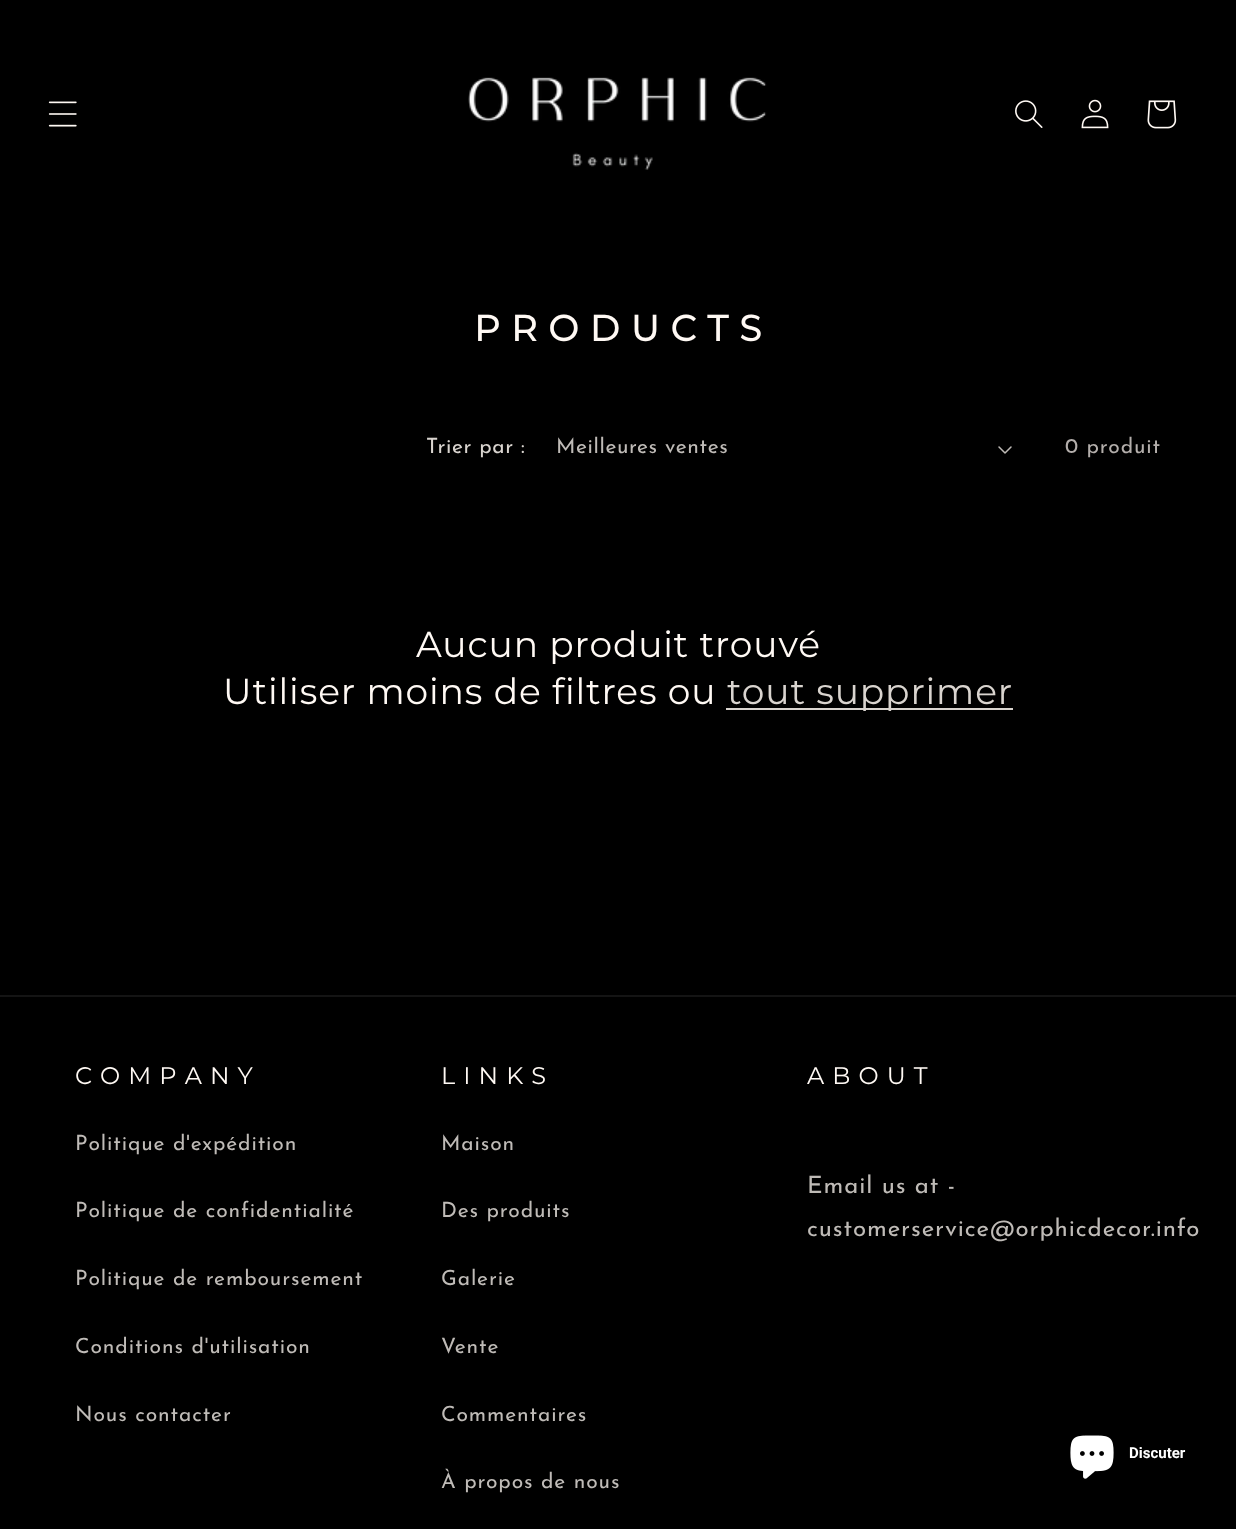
async function draw(canvas) {
	canvas.width = 1236;
	canvas.height = 1529;
	const c = canvas.getContext('2d');
	c.miterLimit = 4;
	c.fontKerning = 'normal';
	async function loadImage(src) {
		const img = new Image();
		img.src = src;
		await img.decode();
		return img;
	}

	c.fillStyle = '#000';
	c.fillRect(0, 0, 1236, 1529);
	c.drawImage(await loadImage('img1.png'), 48, 101, 29, 26);
	c.drawImage(await loadImage('img2.png'), 468, 77, 299, 93);
	c.drawImage(await loadImage('img3.png'), 1015, 100, 28, 28);
	c.drawImage(await loadImage('img4.png'), 1081, 99, 28, 30);
	c.drawImage(await loadImage('img5.png'), 1147, 100, 30, 29);
	c.letterSpacing = '0.9px';
	c.font = 'bold 36px Montserrat';
	c.fillStyle = '#fff9f4';
	c.fillText('P R O D U C T S', 474, 341);
	c.letterSpacing = '0.6px';
	c.font = '21px Josefin Sans';
	c.fillStyle = '#d9d4cf';
	c.fillText('Trier par :', 426, 453);
	c.fillStyle = '#bfbbb7';
	c.fillText('Meilleures ventes', 556, 453);
	c.drawImage(await loadImage('img6.png'), 998, 446, 14, 8);
	c.letterSpacing = '0.9px';
	c.fillStyle = '#b3aeab';
	c.fillText('0 produit', 1065, 453);
	c.font = '36px Montserrat';
	c.fillStyle = '#fff9f4';
	c.fillText('Aucun produit trouvé', 416, 657);
	c.fillText('Utiliser moins de filtres ou', 223, 704);
	c.fillStyle = '#d9d4cf';
	c.fillRect(726, 708, 287, 2);
	c.fillText('tout supprimer', 727, 704);
	c.fillStyle = '#141414';
	c.fillRect(0, 995, 1236, 2);
	c.font = '24px Montserrat';
	c.fillStyle = '#fff9f4';
	c.fillText('C O M P A N Y', 75, 1084);
	c.font = '21px Josefin Sans';
	c.fillStyle = '#bfbbb7';
	for (const [text, x, y] of [
		['Politique d\'expédition', 75, 1150],
		['Politique de confidentialité', 75, 1217],
		['Politique de remboursement', 75, 1285],
		['Conditions d\'utilisation', 75, 1353],
		['Nous contacter', 75, 1421],
	]) {
		c.fillText(text, x, y);
	}
	c.font = '24px Montserrat';
	c.fillStyle = '#fff9f4';
	c.fillText('L I N K S', 441, 1084);
	c.font = '21px Josefin Sans';
	c.fillStyle = '#bfbbb7';
	for (const [text, x, y] of [
		['Maison', 441, 1150],
		['Des produits', 441, 1217],
		['Galerie', 441, 1285],
		['Vente', 441, 1353],
		['Commentaires', 441, 1421],
		['À propos de nous', 441, 1488],
	]) {
		c.fillText(text, x, y);
	}
	c.font = '24px Montserrat';
	c.fillStyle = '#fff9f4';
	c.fillText('A B O U T', 807, 1084);
	c.font = '24px Josefin Sans';
	c.fillStyle = '#bfbbb7';
	c.fillText('Email us at -', 807, 1193);
	c.fillText('customerservice@orphicdecor.info', 807, 1236);
	c.drawImage(await loadImage('img7.png'), 1070, 1435, 44, 44);
	c.letterSpacing = '0px';
	c.font = 'bold 15px Roboto';
	c.fillStyle = '#fff';
	c.fillText('Discuter', 1129, 1458);
}

draw(document.querySelector('canvas'));
